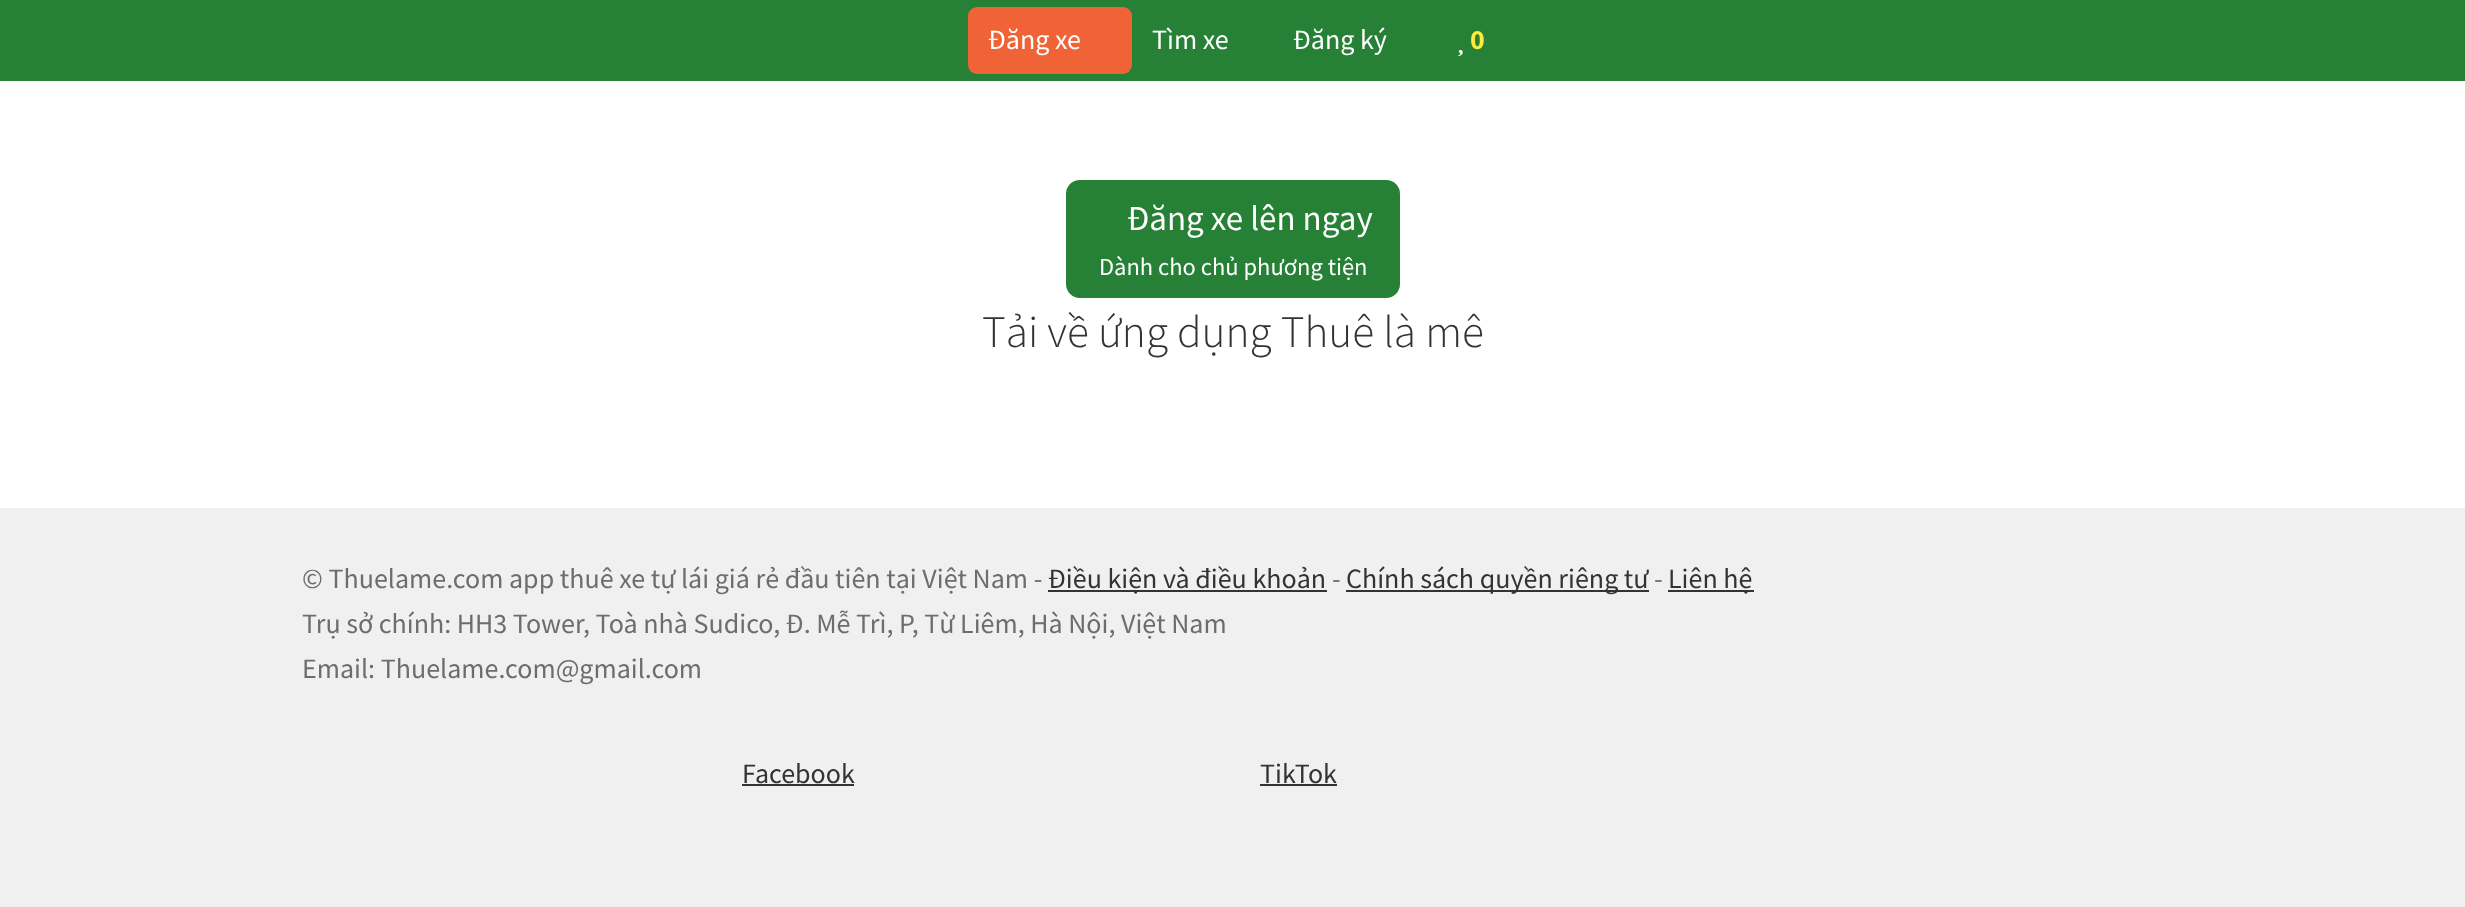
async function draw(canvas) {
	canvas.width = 2465;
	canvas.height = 907;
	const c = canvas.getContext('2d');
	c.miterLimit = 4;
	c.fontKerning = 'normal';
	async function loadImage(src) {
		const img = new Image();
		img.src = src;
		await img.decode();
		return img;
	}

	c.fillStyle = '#fff';
	c.fillRect(0, 0, 2465, 907);
	c.fillStyle = '#268035';
	c.fillRect(0, 0, 2465, 81);
	c.fillStyle = '#f06336';
	c.beginPath();
	c.roundRect(968, 7, 164, 67, 9);
	c.fill();
	c.font = '28px Source Sans Pro';
	c.fillStyle = '#fff';
	for (const [text, x, y] of [
		['Đăng xe', 988, 49],
		['Tìm xe', 1152, 49],
		['Đăng ký', 1293, 49],
	]) {
		c.fillText(text, x, y);
	}
	c.font = 'bold 28px Source Sans Pro';
	c.fillStyle = '#ffeb3b';
	c.fillText('0', 1470, 49);
	c.drawImage(await loadImage('img1.png'), 1458, 50, 5, 7);
	c.fillStyle = '#268035';
	c.beginPath();
	c.roundRect(1066, 180, 334, 118, 14);
	c.fill();
	c.font = '35px Source Sans Pro';
	c.fillStyle = '#fff';
	c.fillText('Đăng xe lên ngay', 1127, 230);
	c.font = '24.5px Source Sans Pro';
	c.fillText('Dành cho chủ phương tiện', 1099, 275);
	c.font = '300 45.25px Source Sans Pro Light';
	c.fillStyle = '#333';
	c.fillText('Tải về ứng dụng Thuê là mê', 982, 347);
	c.fillStyle = '#f0f0f0';
	c.fillRect(0, 508, 2465, 399);
	c.font = '28px Source Sans Pro';
	c.fillStyle = '#6d6d6d';
	c.fillText('© Thuelame.com app thuê xe tự lái giá rẻ đầu tiên tại Việt Nam -', 302, 588);
	c.fillStyle = '#333';
	c.fillRect(1048, 590, 279, 2);
	c.fillText('Điều kiện và điều khoản', 1048, 588);
	c.fillStyle = '#6d6d6d';
	c.fillText('-', 1332, 588);
	c.fillStyle = '#333';
	c.fillRect(1346, 590, 303, 2);
	c.fillText('Chính sách quyền riêng tư', 1346, 588);
	c.fillStyle = '#6d6d6d';
	c.fillText('-', 1654, 588);
	c.fillStyle = '#333';
	c.fillRect(1668, 590, 86, 2);
	c.fillText('Liên hệ', 1668, 588);
	c.fillStyle = '#6d6d6d';
	c.fillText('Trụ sở chính: HH3 Tower, Toà nhà Sudico, Đ. Mễ Trì, P, Từ Liêm, Hà Nội, Việt Nam', 302, 633);
	c.fillText('Email: Thuelame.com@gmail.com', 302, 678);
	c.fillStyle = '#333';
	c.fillText('Facebook', 742, 783);
	c.fillRect(742, 784, 112, 2);
	c.fillText('TikTok', 1260, 783);
	c.fillRect(1260, 784, 77, 2);
}

draw(document.querySelector('canvas'));
